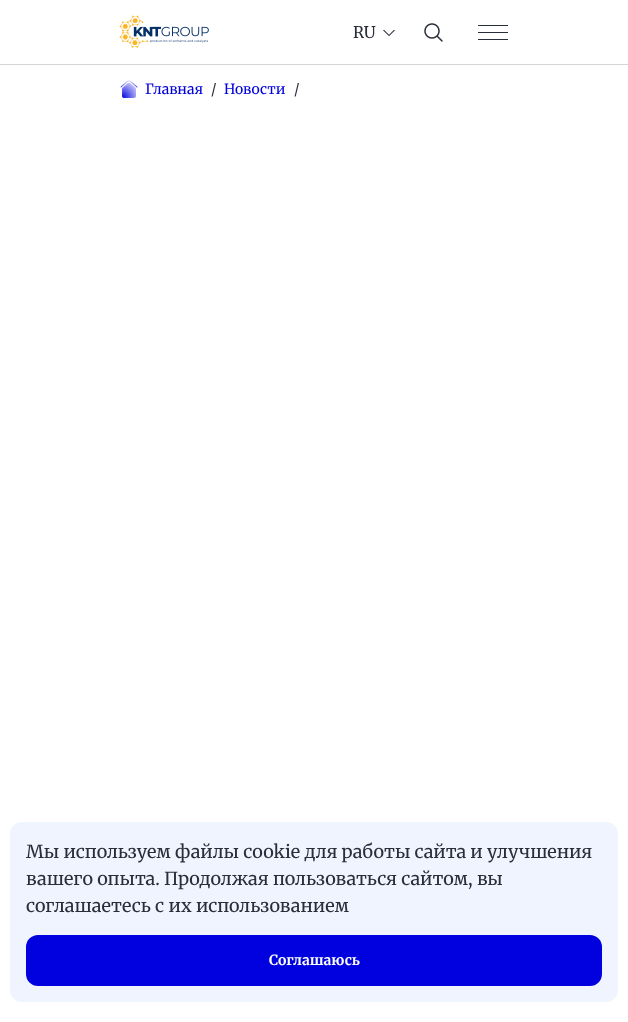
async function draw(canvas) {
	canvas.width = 628;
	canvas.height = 1022;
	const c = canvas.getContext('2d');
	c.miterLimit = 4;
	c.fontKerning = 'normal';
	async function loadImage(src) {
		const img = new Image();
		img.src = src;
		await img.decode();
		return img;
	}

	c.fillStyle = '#fff';
	c.fillRect(0, 0, 628, 1022);
	c.drawImage(await loadImage('img1.png'), 119, 15, 90, 33);
	c.font = '16px Merriweather';
	c.fillStyle = '#282e3a';
	c.fillText('RU', 353, 38);
	c.drawImage(await loadImage('img2.png'), 383, 30, 13, 6);
	c.drawImage(await loadImage('img3.png'), 424, 23, 19, 19);
	for (const [x, y, w, h, color] of [
		[478, 25, 30, 1, '#282e3a'],
		[478, 32, 30, 1, '#282e3a'],
		[478, 39, 30, 1, '#282e3a'],
		[0, 64, 628, 1, '#d4d5d8'],
	]) {
		c.fillStyle = color;
		c.fillRect(x, y, w, h);
	}
	c.drawImage(await loadImage('img4.png'), 120, 80, 18, 18);
	c.font = '14px Merriweather';
	c.fillStyle = '#0001de';
	c.fillText('Главная', 145, 94);
	c.fillStyle = '#282e3a';
	c.fillText('/', 211, 94);
	c.fillStyle = '#0001de';
	c.fillText('Новости', 224, 94);
	c.fillStyle = '#282e3a';
	c.fillText('/', 294, 94);
	c.fillStyle = '#f0f4fe';
	c.beginPath();
	c.roundRect(10, 822, 608, 180, 12);
	c.fill();
	c.font = '18px Merriweather';
	c.fillStyle = '#282e3a';
	for (const [text, x, y] of [
		['Мы используем файлы cookie для работы сайта и улучшения', 26, 858],
		['вашего опыта. Продолжая пользоваться сайтом, вы', 26, 885],
		['соглашаетесь с их использованием', 26, 912],
	]) {
		c.fillText(text, x, y);
	}
	c.fillStyle = '#0001de';
	c.beginPath();
	c.roundRect(26, 935, 576, 51, 12);
	c.fill();
	c.font = 'bold 14px Merriweather';
	c.fillStyle = '#fff';
	c.fillText('Соглашаюсь', 269, 965);
}

draw(document.querySelector('canvas'));
